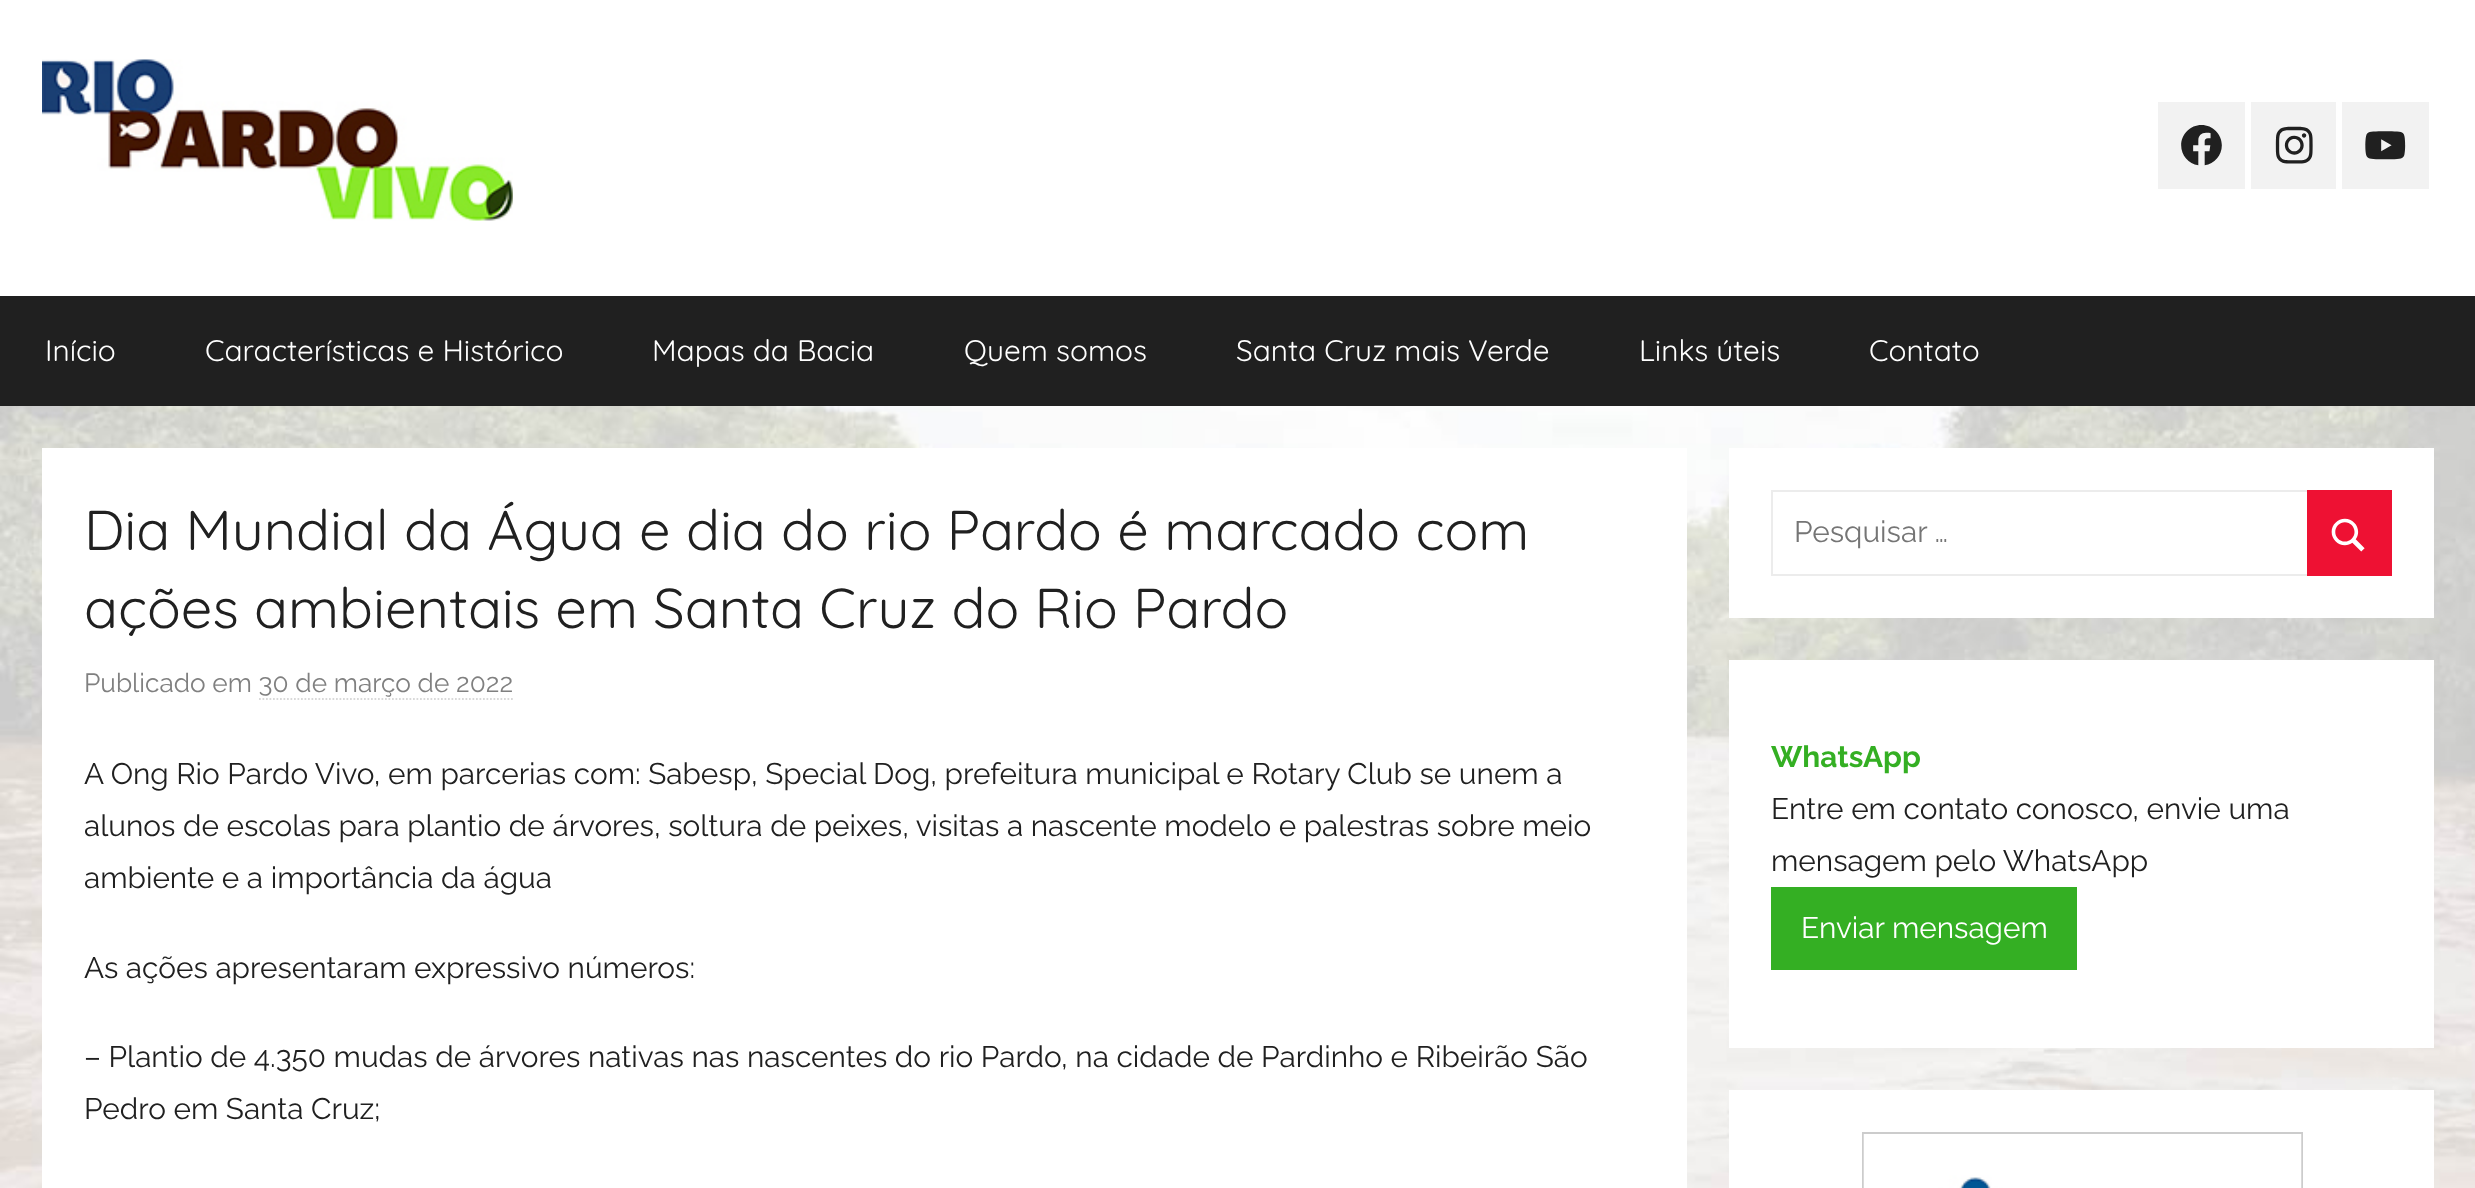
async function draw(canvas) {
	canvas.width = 2475;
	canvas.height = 1188;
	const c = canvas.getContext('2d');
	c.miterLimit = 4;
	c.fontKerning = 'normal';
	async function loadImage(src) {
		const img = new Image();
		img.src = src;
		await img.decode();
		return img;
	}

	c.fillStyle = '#fff';
	c.fillRect(0, 0, 2475, 1188);
	c.drawImage(await loadImage('img1.png'), 0, 406, 2475, 782);
	c.drawImage(await loadImage('img2.png'), 42, 59, 471, 162);
	c.fillStyle = '#f2f2f2';
	c.fillRect(2158, 102, 87, 87);
	c.drawImage(await loadImage('img3.png'), 2181, 125, 41, 41);
	c.fillRect(2251, 102, 85, 87);
	c.drawImage(await loadImage('img4.png'), 2275, 126, 38, 38);
	c.fillRect(2342, 102, 87, 87);
	c.drawImage(await loadImage('img5.png'), 2365, 131, 41, 29);
	c.fillStyle = '#202020';
	c.fillRect(0, 296, 2475, 110);
	c.font = '29.75px Quicksand';
	c.fillStyle = '#fff';
	for (const [text, x, y] of [
		['Início', 45, 361],
		['Características e Histórico', 205, 361],
		['Mapas da Bacia', 652, 361],
		['Quem somos', 964, 361],
		['Santa Cruz mais Verde', 1236, 361],
		['Links úteis', 1639, 361],
		['Contato', 1869, 361],
	]) {
		c.fillText(text, x, y);
	}
	c.fillRect(42, 448, 1645, 740);
	c.font = '56px Quicksand';
	c.fillStyle = '#202020';
	c.fillText('Dia Mundial da Água e dia do rio Pardo é marcado com', 84, 550);
	c.fillText('ações ambientais em Santa Cruz do Rio Pardo', 84, 628);
	c.font = '26.25px Raleway';
	c.fillStyle = '#808080';
	c.fillText('Publicado em 30 de março de 2022', 84, 692);
	c.beginPath();
	c.moveTo(259, 699);
	c.lineTo(513, 699);
	c.strokeStyle = '#d9d9d9';
	c.lineWidth = 1.8;
	c.setLineDash([1.75, 1.75]);
	c.stroke();
	c.font = '29.75px Raleway';
	c.fillStyle = '#202020';
	for (const [text, x, y] of [
		['A Ong Rio Pardo Vivo, em parcerias com: Sabesp, Special Dog, prefeitura municipal e Rotary Club se unem a', 84, 784],
		['alunos de escolas para plantio de árvores, soltura de peixes, visitas a nascente modelo e palestras sobre meio', 84, 836],
		['ambiente e a importância da água', 84, 888],
		['As ações apresentaram expressivo números:', 84, 978],
		['– Plantio de 4.350 mudas de árvores nativas nas nascentes do rio Pardo, na cidade de Pardinho e Ribeirão São', 84, 1067],
		['Pedro em Santa Cruz;', 84, 1119],
	]) {
		c.fillText(text, x, y);
	}
	c.fillStyle = '#fff';
	c.fillRect(1729, 448, 705, 170);
	c.strokeStyle = '#ececec';
	c.lineWidth = 2;
	c.setLineDash([]);
	c.strokeRect(1772, 491, 619, 84);
	c.fillStyle = '#757575';
	c.fillText('Pesquisar …', 1794, 542);
	c.fillStyle = '#e13';
	c.fillRect(2307, 490, 85, 86);
	c.drawImage(await loadImage('img6.png'), 2331, 518, 34, 34);
	c.fillStyle = '#fff';
	c.fillRect(1729, 660, 705, 388);
	c.font = 'bold 29.75px Raleway';
	c.fillStyle = '#34af23';
	c.fillText('WhatsApp', 1771, 767);
	c.font = '29.75px Raleway';
	c.fillStyle = '#202020';
	c.fillText('Entre em contato conosco, envie uma', 1771, 819);
	c.fillText('mensagem pelo WhatsApp', 1771, 871);
	c.fillStyle = '#34af23';
	c.fillRect(1771, 887, 306, 83);
	c.fillStyle = '#fff';
	c.fillText('Enviar mensagem', 1801, 938);
	c.fillRect(1729, 1090, 705, 98);
	c.strokeStyle = '#ccc';
	c.strokeRect(1863, 1133, 439, 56);
	c.drawImage(await loadImage('img7.png'), 1863, 1134, 439, 54);
}

draw(document.querySelector('canvas'));
